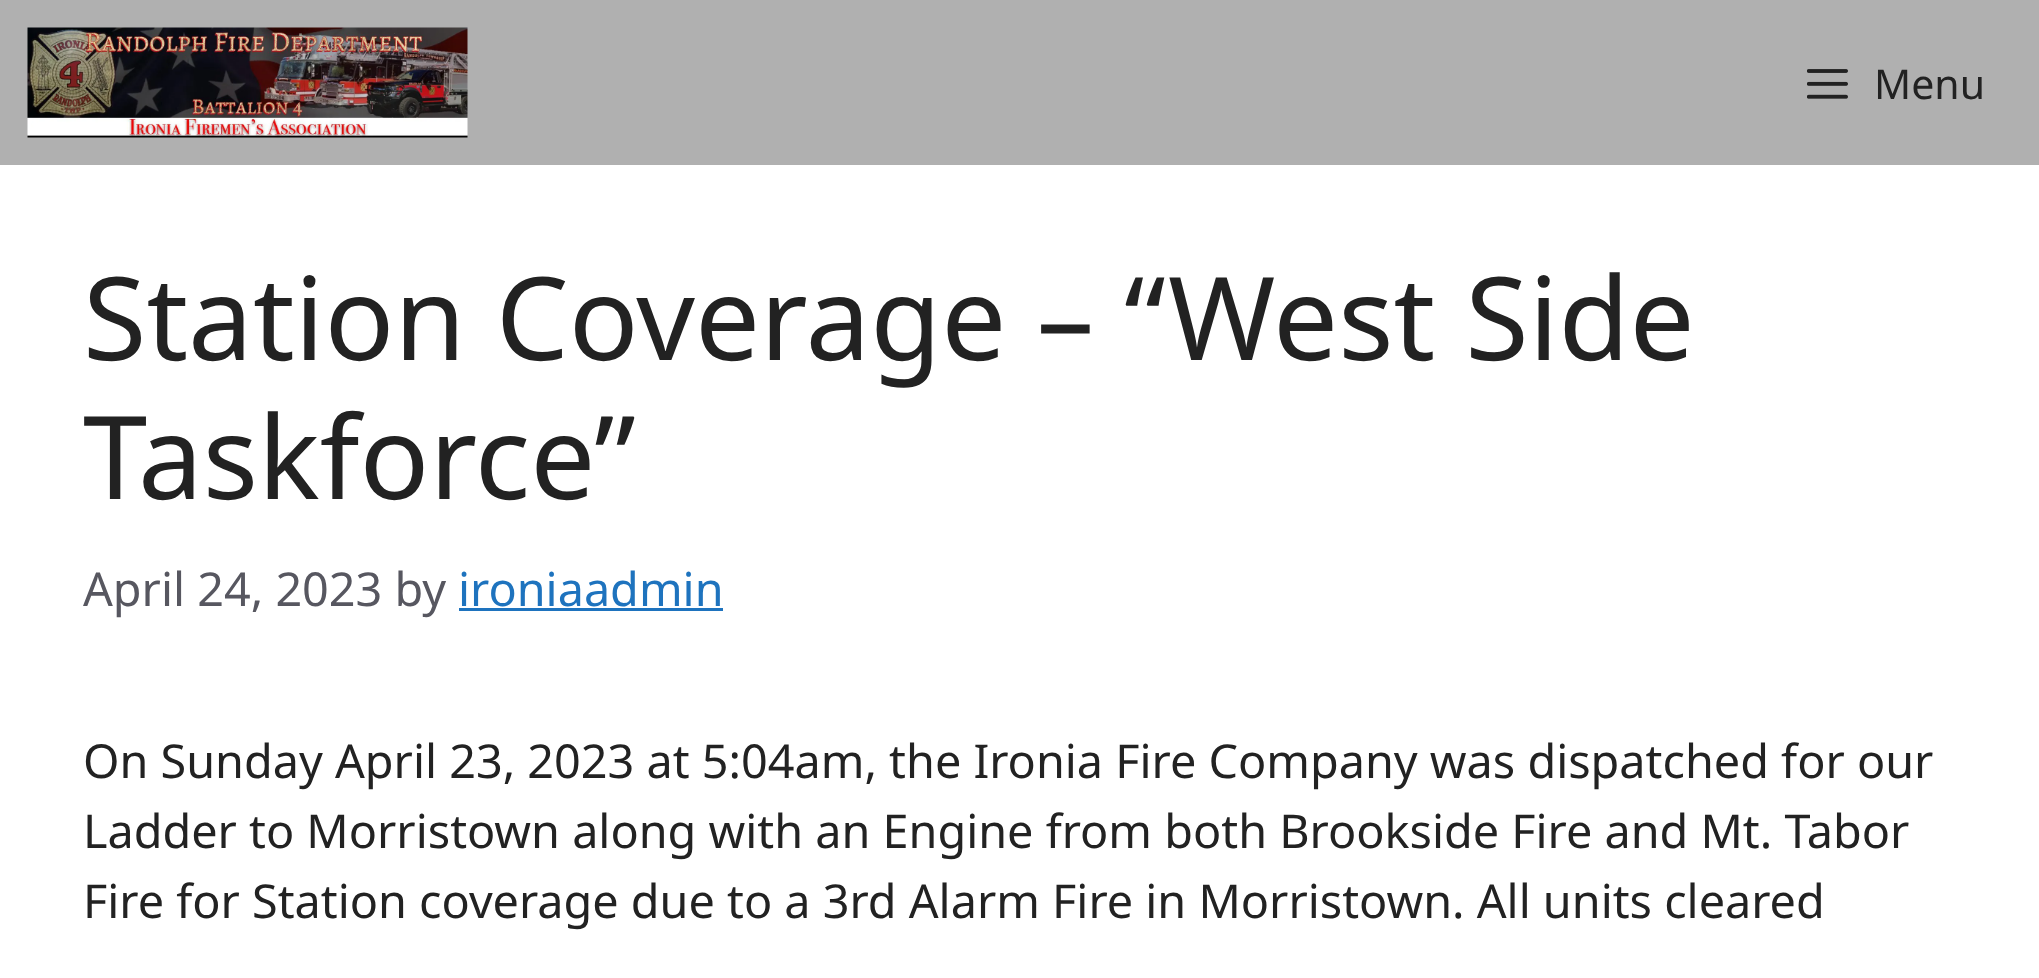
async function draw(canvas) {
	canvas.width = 2039;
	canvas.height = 978;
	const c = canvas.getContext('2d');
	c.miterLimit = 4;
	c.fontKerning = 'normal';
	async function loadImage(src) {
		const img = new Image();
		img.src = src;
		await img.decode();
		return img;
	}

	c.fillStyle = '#b0b0b0';
	c.fillRect(0, 0, 2039, 978);
	c.drawImage(await loadImage('img1.png'), 27, 27, 441, 111);
	c.drawImage(await loadImage('img2.png'), 1807, 69, 41, 30);
	c.font = '41px Noto Sans';
	c.fillStyle = '#222';
	c.fillText('Menu', 1874, 99);
	c.fillStyle = '#fff';
	c.fillRect(0, 165, 2039, 813);
	c.font = '115.5px Noto Sans';
	c.fillStyle = '#222';
	c.fillText('Station Coverage – “West Side', 83, 360);
	c.fillText('Taskforce”', 83, 499);
	c.font = '46.75px Noto Sans';
	c.fillStyle = '#575760';
	c.fillText('April 24, 2023 by', 83, 606);
	c.fillStyle = '#1e73be';
	c.fillText('ironiaadmin', 458, 606);
	c.fillRect(459, 608, 264, 3);
	c.fillStyle = '#222';
	for (const [text, x, y] of [
		['On Sunday April 23, 2023 at 5:04am, the Ironia Fire Company was dispatched for our', 83, 778],
		['Ladder to Morristown along with an Engine from both Brookside Fire and Mt. Tabor', 83, 848],
		['Fire for Station coverage due to a 3rd Alarm Fire in Morristown. All units cleared', 83, 918],
	]) {
		c.fillText(text, x, y);
	}
}

draw(document.querySelector('canvas'));
